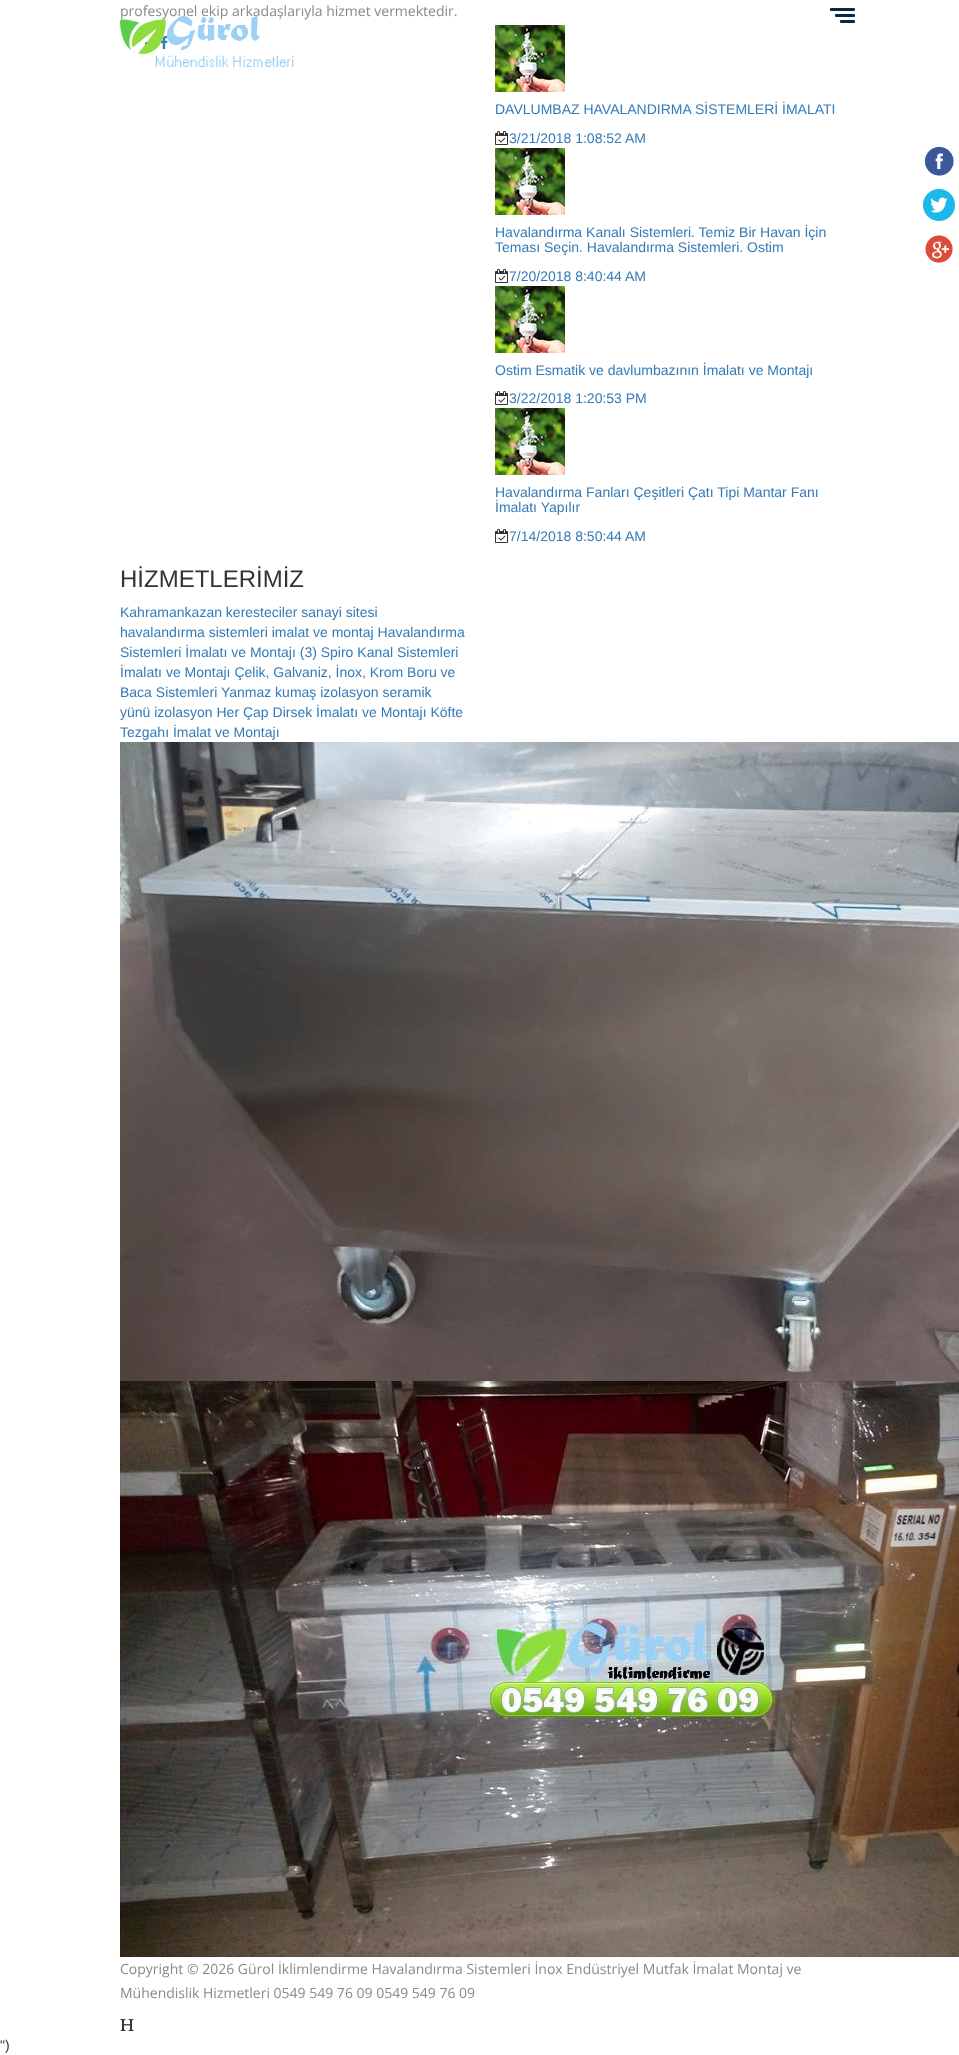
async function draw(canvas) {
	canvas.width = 959;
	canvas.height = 2055;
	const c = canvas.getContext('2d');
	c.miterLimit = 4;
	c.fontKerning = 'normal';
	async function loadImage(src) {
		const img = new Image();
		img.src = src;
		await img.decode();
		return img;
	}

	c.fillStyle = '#fff';
	c.fillRect(0, 0, 959, 2055);
	c.font = '14px Open Sans';
	c.fillStyle = '#898989';
	c.fillText('profesyonel ekip arkadaşlarıyla hizmet vermektedir.', 120, 16);
	c.fillStyle = '#333';
	c.beginPath();
	c.arc(147, 44, 2, 0, 2 * Math.PI);
	c.fill();
	c.drawImage(await loadImage('img1.png'), 160, 36, 8, 13);
	c.drawImage(await loadImage('img2.png'), 495, 25, 70, 67);
	c.font = '14px Liberation Sans';
	c.fillStyle = '#337ab7';
	c.fillText('DAVLUMBAZ HAVALANDIRMA SİSTEMLERİ İMALATI', 495, 114);
	c.drawImage(await loadImage('img3.png'), 495, 131, 13, 14);
	c.fillText('3/21/2018 1:08:52 AM', 509, 143);
	c.drawImage(await loadImage('img2.png'), 495, 148, 70, 67);
	c.fillText('Havalandırma Kanalı Sistemleri. Temiz Bir Havan İçin', 495, 237);
	c.fillText('Teması Seçin. Havalandırma Sistemleri. Ostim', 495, 252);
	c.drawImage(await loadImage('img3.png'), 495, 269, 13, 14);
	c.fillText('7/20/2018 8:40:44 AM', 509, 281);
	c.drawImage(await loadImage('img2.png'), 495, 286, 70, 67);
	c.fillText('Ostim Esmatik ve davlumbazının İmalatı ve Montajı', 495, 375);
	c.drawImage(await loadImage('img3.png'), 495, 391, 13, 14);
	c.fillText('3/22/2018 1:20:53 PM', 509, 403);
	c.drawImage(await loadImage('img2.png'), 495, 408, 70, 67);
	c.fillText('Havalandırma Fanları Çeşitleri Çatı Tipi Mantar Fanı', 495, 497);
	c.fillText('İmalatı Yapılır', 495, 512);
	c.drawImage(await loadImage('img3.png'), 495, 529, 13, 14);
	c.fillText('7/14/2018 8:50:44 AM', 509, 541);
	c.font = '24px Liberation Sans';
	c.fillStyle = '#333';
	c.fillText('HİZMETLERİMİZ', 120, 587);
	c.font = '14px Liberation Sans';
	c.fillStyle = '#337ab7';
	for (const [text, x, y] of [
		['Kahramankazan keresteciler sanayi sitesi', 120, 617],
		['havalandırma sistemleri imalat ve montaj Havalandırma', 120, 637],
		['Sistemleri İmalatı ve Montajı (3) Spiro Kanal Sistemleri', 120, 657],
		['İmalatı ve Montajı Çelik, Galvaniz, İnox, Krom Boru ve', 120, 677],
		['Baca Sistemleri Yanmaz kumaş izolasyon seramik', 120, 697],
		['yünü izolasyon Her Çap Dirsek İmalatı ve Montajı Köfte', 120, 717],
		['Tezgahı İmalat ve Montajı', 120, 737],
	]) {
		c.fillText(text, x, y);
	}
	c.drawImage(await loadImage('img4.png'), 120, 742, 839, 639);
	c.drawImage(await loadImage('img5.png'), 120, 1381, 839, 576);
	c.font = '14px Open Sans';
	c.fillStyle = '#898989';
	c.fillText('Copyright © 2026 Gürol İklimlendirme Havalandırma Sistemleri İnox Endüstriyel Mutfak İmalat Montaj ve', 120, 1974);
	c.fillText('Mühendislik Hizmetleri 0549 549 76 09 0549 549 76 09', 120, 1998);
	c.drawImage(await loadImage('img6.png'), 120, 2019, 14, 12);
	c.drawImage(await loadImage('img7.png'), 120, 16, 174, 51);
	c.fillStyle = '#092942';
	c.beginPath();
	c.roundRect(830, 8, 25, 3, 1);
	c.fill();
	c.beginPath();
	c.roundRect(835, 14, 20, 3, 1);
	c.fill();
	c.beginPath();
	c.roundRect(840, 20, 15, 3, 1);
	c.fill();
	c.drawImage(await loadImage('img8.png'), 924, 146, 30, 30);
	c.drawImage(await loadImage('img9.png'), 923, 189, 32, 32);
	c.drawImage(await loadImage('img10.png'), 925, 235, 28, 28);
	c.font = '14px Liberation Sans';
	c.fillStyle = '#333';
	c.fillText('")', 0, 2050);
}

draw(document.querySelector('canvas'));
